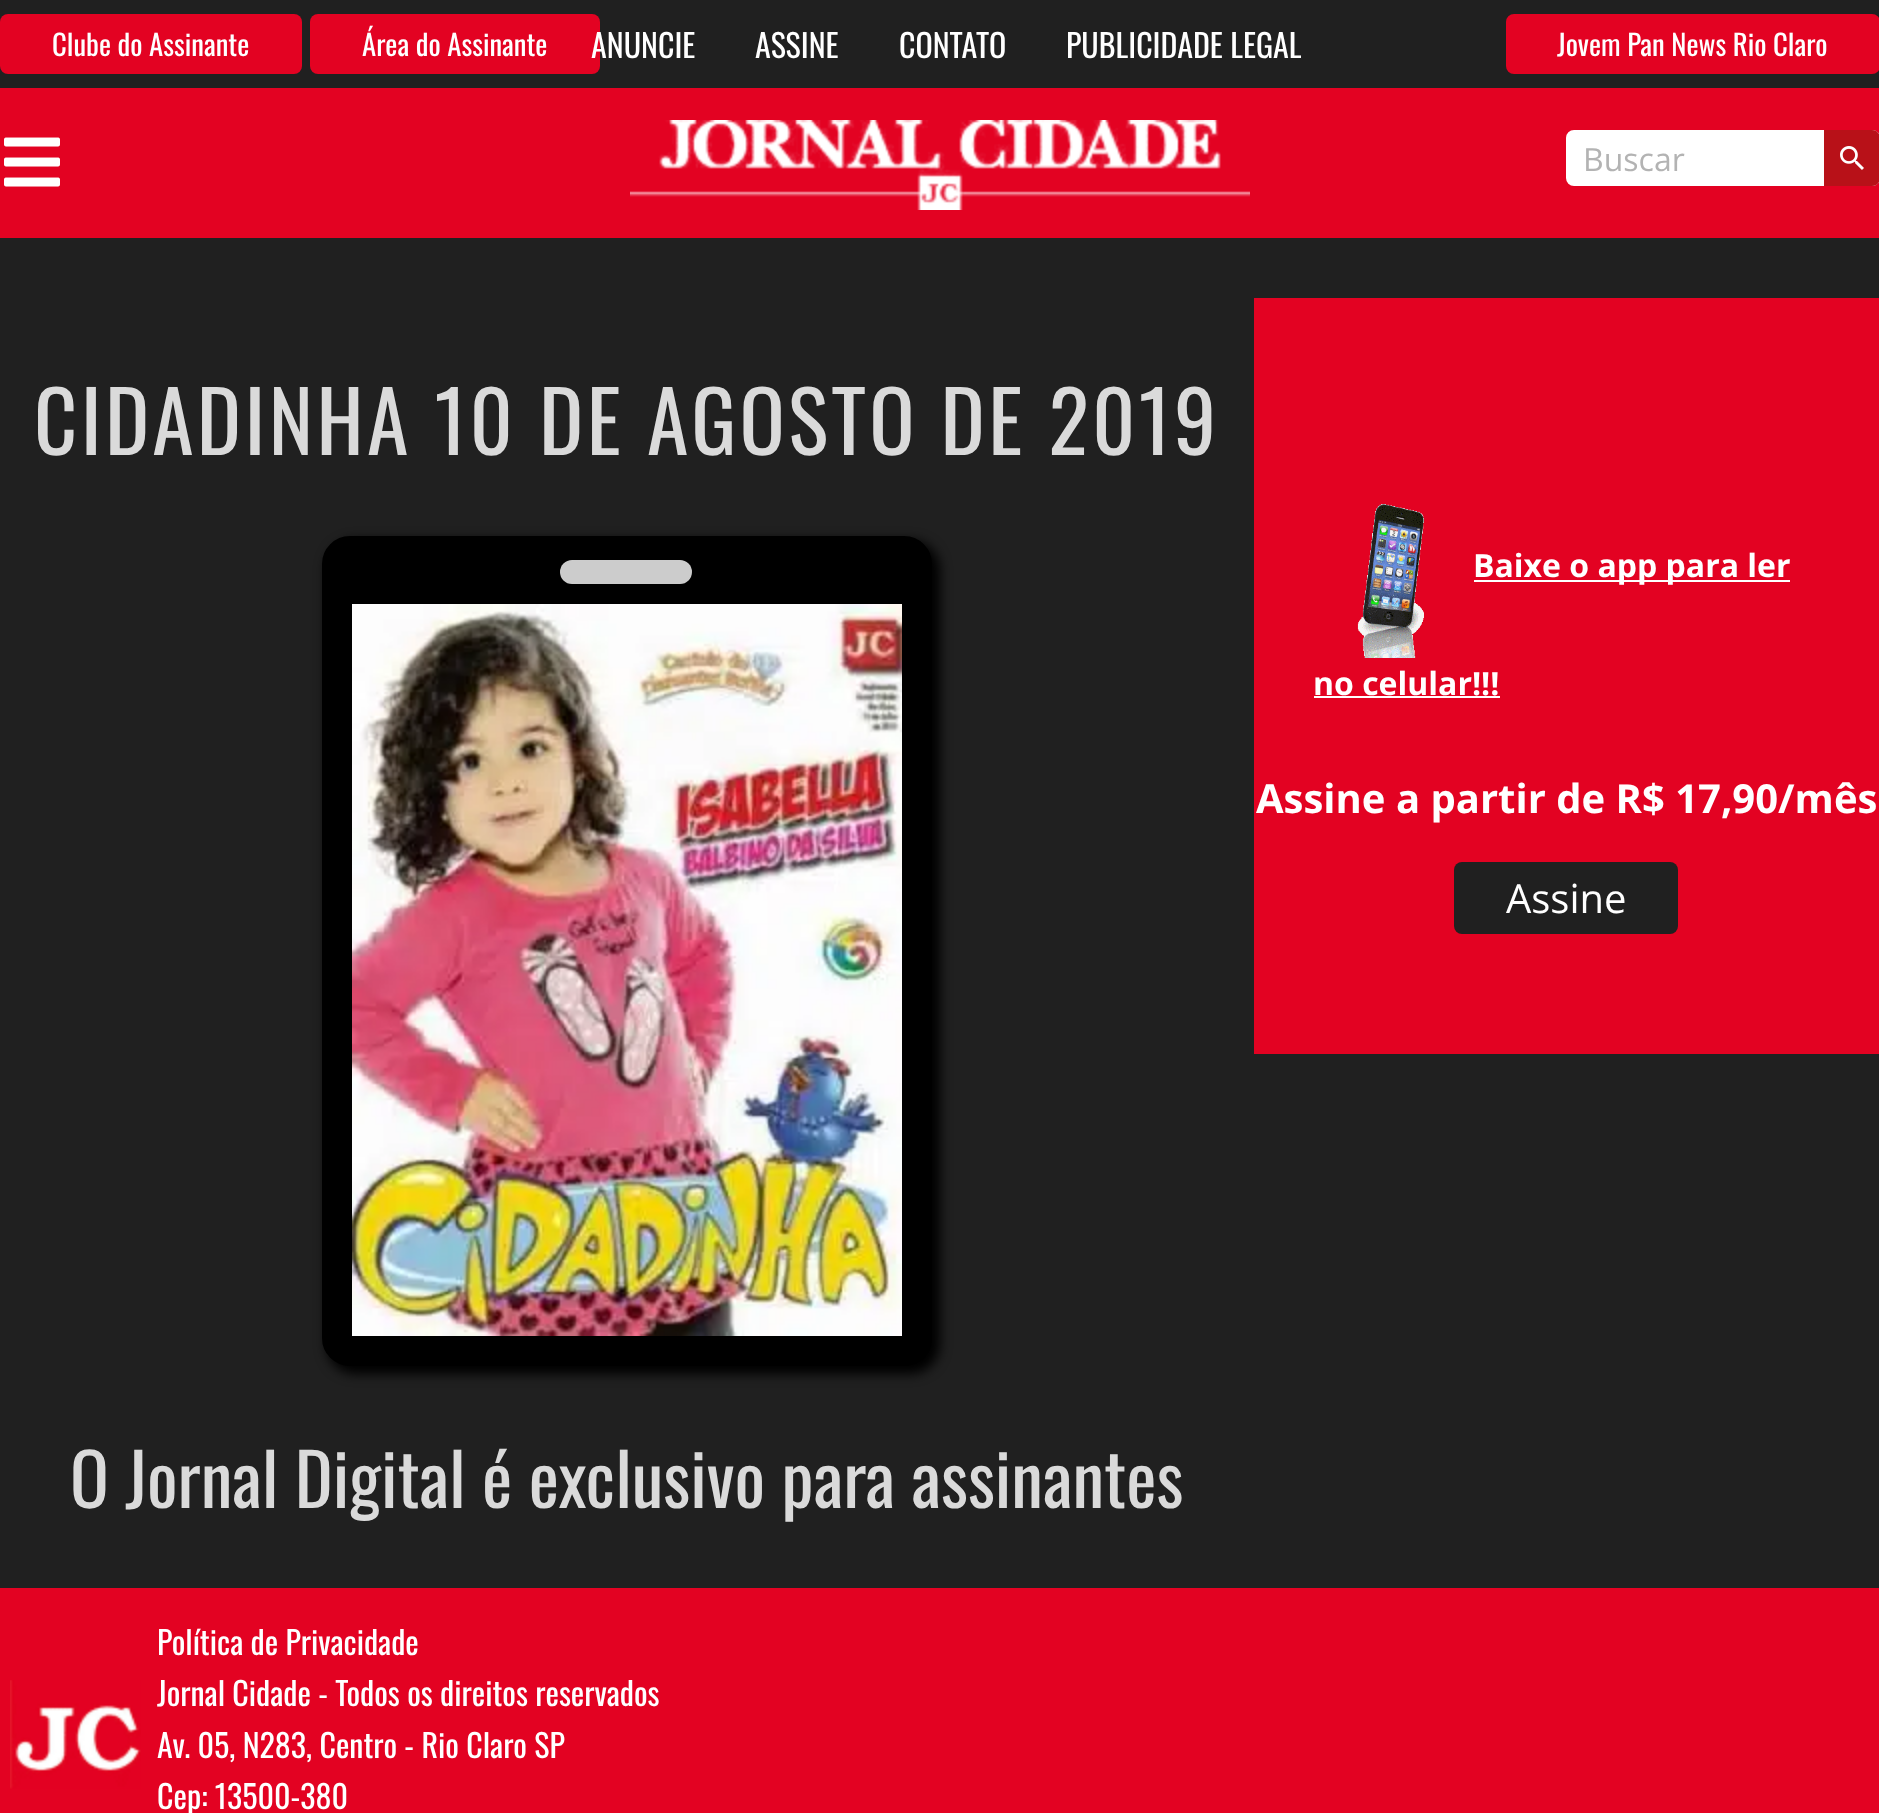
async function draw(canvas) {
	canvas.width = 1879;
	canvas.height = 1813;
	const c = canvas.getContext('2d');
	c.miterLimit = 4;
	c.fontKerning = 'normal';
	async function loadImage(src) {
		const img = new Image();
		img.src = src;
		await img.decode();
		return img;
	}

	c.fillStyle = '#202020';
	c.fillRect(0, 0, 1879, 1813);
	c.fillStyle = '#e30222';
	c.beginPath();
	c.roundRect(0, 14, 302, 60, 8);
	c.fill();
	c.font = '28.75px Oswald';
	c.fillStyle = '#fff';
	c.fillText('Clube do Assinante', 52, 56);
	c.fillStyle = '#e30222';
	c.beginPath();
	c.roundRect(310, 14, 290, 60, 8);
	c.fill();
	c.fillStyle = '#fff';
	c.fillText('Área do Assinante', 362, 56);
	c.font = '32px Oswald';
	for (const [text, x, y] of [
		['ANUNCIE', 591, 58],
		['ASSINE', 755, 58],
		['CONTATO', 899, 58],
		['PUBLICIDADE LEGAL', 1066, 58],
	]) {
		c.fillText(text, x, y);
	}
	c.fillStyle = '#e30222';
	c.beginPath();
	c.roundRect(1506, 14, 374, 60, 8);
	c.fill();
	c.font = '28.75px Oswald';
	c.fillStyle = '#fff';
	c.fillText('Jovem Pan News Rio Claro', 1557, 56);
	c.fillStyle = '#e30222';
	c.fillRect(0, 88, 1879, 150);
	c.drawImage(await loadImage('img1.png'), 4, 137, 56, 50);
	c.drawImage(await loadImage('img2.png'), 630, 120, 620, 90);
	c.fillStyle = '#fff';
	c.beginPath();
	c.roundRect(1566, 130, 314, 56, 8);
	c.fill();
	c.font = '32px Open Sans';
	c.fillStyle = '#b3b3b3';
	c.fillText('Buscar', 1583, 171);
	c.fillStyle = '#b81118';
	c.beginPath();
	c.moveTo(1824, 130);
	c.lineTo(1872, 130);
	c.bezierCurveTo(1876.5, 130, 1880, 133.5, 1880, 138);
	c.lineTo(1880, 178);
	c.bezierCurveTo(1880, 182.5, 1876.5, 186, 1872, 186);
	c.lineTo(1824, 186);
	c.closePath();
	c.fill();
	c.drawImage(await loadImage('img3.png'), 1840, 146, 24, 24);
	c.letterSpacing = '3.4px';
	c.font = '84px Oswald';
	c.fillStyle = '#dadada';
	c.fillText('CIDADINHA 10 DE AGOSTO DE 2019', 34, 455);
	c.fillStyle = '#000';
	c.filter = 'blur(6px)';
	c.beginPath();
	c.roundRect(326, 540, 614, 834, 30);
	c.fill();
	c.filter = 'none';
	c.beginPath();
	c.roundRect(325, 539, 604, 824, 25);
	c.fill();
	c.strokeStyle = '#000';
	c.lineWidth = 6;
	c.stroke();
	c.fillStyle = '#ccc';
	c.beginPath();
	c.roundRect(560, 560, 132, 24, 12);
	c.fill();
	c.drawImage(await loadImage('img4.png'), 352, 604, 550, 732);
	c.letterSpacing = '0px';
	c.font = '72px Oswald';
	c.fillStyle = '#dadada';
	c.fillText('O Jornal Digital é exclusivo para assinantes', 70, 1508);
	c.fillStyle = '#e30222';
	c.fillRect(1254, 298, 625, 756);
	c.drawImage(await loadImage('img5.png'), 1357, 504, 67, 154);
	c.fillStyle = '#fff';
	c.fillRect(1474, 580, 316, 2);
	c.font = 'bold 32px Open Sans';
	c.fillText('Baixe o app para ler', 1473, 577);
	c.fillText('no celular!!!', 1313, 695);
	c.fillRect(1314, 696, 186, 2);
	c.font = 'bold 40px Open Sans';
	c.fillText('Assine a partir de R$ 17,90/mês', 1256, 813);
	c.fillStyle = '#202020';
	c.beginPath();
	c.roundRect(1454, 862, 224, 72, 8);
	c.fill();
	c.font = '40px Open Sans';
	c.fillStyle = '#fff';
	c.fillText('Assine', 1506, 913);
	c.fillStyle = '#e30222';
	c.fillRect(0, 1588, 1879, 225);
	c.drawImage(await loadImage('img6.png'), 10, 1680, 131, 109);
	c.font = '32px Oswald';
	c.fillStyle = '#fff';
	for (const [text, x, y] of [
		['Política de Privacidade', 157, 1655],
		['Jornal Cidade - Todos os direitos reservados', 157, 1706],
		['Av. 05, N283, Centro - Rio Claro SP', 157, 1758],
		['Cep: 13500-380', 157, 1809],
	]) {
		c.fillText(text, x, y);
	}
}

draw(document.querySelector('canvas'));
